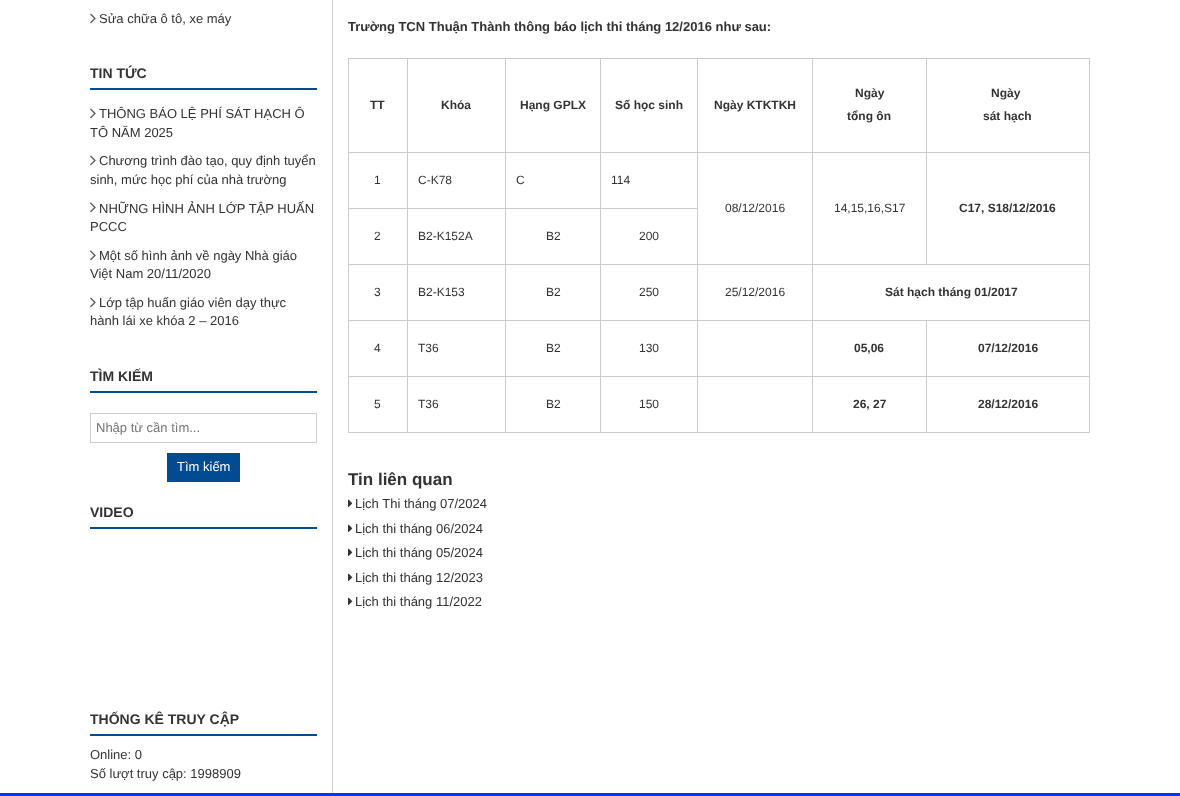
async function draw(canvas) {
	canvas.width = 1180;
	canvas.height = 796;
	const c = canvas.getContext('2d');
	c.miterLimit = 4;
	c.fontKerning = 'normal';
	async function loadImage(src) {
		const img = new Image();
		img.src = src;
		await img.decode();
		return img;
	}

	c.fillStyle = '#fff';
	c.fillRect(0, 0, 1180, 796);
	c.fillStyle = '#cecece';
	c.fillRect(332, 0, 1, 793);
	c.drawImage(await loadImage('img1.png'), 90, 13, 6, 11);
	c.font = '13px Liberation Sans';
	c.fillStyle = '#333';
	c.fillText('Sửa chữa ô tô, xe máy', 99, 23);
	c.fillStyle = '#014b92';
	c.fillRect(90, 88, 227, 2);
	c.font = 'bold 14px Liberation Sans';
	c.fillStyle = '#333';
	c.fillText('TIN TỨC', 90, 78);
	c.drawImage(await loadImage('img1.png'), 90, 108, 6, 11);
	c.font = '13px Liberation Sans';
	c.fillText('THÔNG BÁO LỆ PHÍ SÁT HẠCH Ô', 99, 118);
	c.fillText('TÔ NĂM 2025', 90, 137);
	c.drawImage(await loadImage('img1.png'), 90, 155, 6, 11);
	c.fillText('Chương trình đào tạo, quy định tuyển', 99, 165);
	c.fillText('sinh, mức học phí của nhà trường', 90, 184);
	c.drawImage(await loadImage('img1.png'), 90, 202, 6, 11);
	c.fillText('NHỮNG HÌNH ẢNH LỚP TẬP HUẤN', 99, 213);
	c.fillText('PCCC', 90, 231);
	c.drawImage(await loadImage('img1.png'), 90, 250, 6, 11);
	c.fillText('Một số hình ảnh về ngày Nhà giáo', 99, 260);
	c.fillText('Việt Nam 20/11/2020', 90, 278);
	c.drawImage(await loadImage('img1.png'), 90, 297, 6, 11);
	c.fillText('Lớp tập huấn giáo viên dạy thực', 99, 307);
	c.fillText('hành lái xe khóa 2 – 2016', 90, 325);
	c.fillStyle = '#014b92';
	c.fillRect(90, 391, 227, 2);
	c.font = 'bold 14px Liberation Sans';
	c.fillStyle = '#333';
	c.fillText('TÌM KIẾM', 90, 381);
	c.strokeStyle = '#cecece';
	c.strokeRect(90.5, 413.5, 226, 29);
	c.font = '13px Liberation Sans';
	c.fillStyle = '#757575';
	c.fillText('Nhập từ cần tìm...', 96, 432);
	c.fillStyle = '#014b92';
	c.fillRect(167, 453, 73, 29);
	c.fillStyle = '#fff';
	c.fillText('Tìm kiếm', 177, 471);
	c.fillStyle = '#014b92';
	c.fillRect(90, 527, 227, 2);
	c.font = 'bold 14px Liberation Sans';
	c.fillStyle = '#333';
	c.fillText('VIDEO', 90, 517);
	c.fillStyle = '#014b92';
	c.fillRect(90, 734, 227, 2);
	c.fillStyle = '#333';
	c.fillText('THỐNG KÊ TRUY CẬP', 90, 724);
	c.font = '13px Liberation Sans';
	c.fillText('Online: 0', 90, 759);
	c.fillText('Số lượt truy cập: 1998909', 90, 778);
	c.font = 'bold 13px Liberation Sans';
	c.fillText('Trường TCN Thuận Thành thông báo lịch thi tháng 12/2016 như sau:', 348, 31);
	for (const [x, y, w, h, color] of [
		[926, 58, 164, 1, '#ccc'],
		[926, 152, 164, 1, '#ccc'],
		[812, 264, 278, 1, '#ccc'],
		[926, 152, 1, 113, '#ccc'],
		[812, 152, 115, 1, '#ccc'],
		[926, 58, 1, 95, '#ccc'],
		[812, 58, 115, 1, '#ccc'],
		[926, 320, 164, 1, '#ccc'],
		[926, 376, 164, 1, '#ccc'],
		[1089, 376, 1, 57, '#ccc'],
		[926, 432, 164, 1, '#ccc'],
		[926, 376, 1, 57, '#ccc'],
		[812, 376, 115, 1, '#ccc'],
		[926, 320, 1, 57, '#ccc'],
		[812, 320, 115, 1, '#ccc'],
		[812, 432, 115, 1, '#ccc'],
		[812, 376, 1, 57, '#ccc'],
		[697, 376, 116, 1, '#ccc'],
		[812, 320, 1, 57, '#ccc'],
		[697, 320, 116, 1, '#ccc'],
		[812, 264, 1, 57, '#ccc'],
		[697, 264, 116, 1, '#ccc'],
		[812, 152, 1, 113, '#ccc'],
		[697, 152, 116, 1, '#ccc'],
		[812, 58, 1, 95, '#ccc'],
		[697, 58, 116, 1, '#ccc'],
		[600, 208, 98, 1, '#ccc'],
		[697, 432, 116, 1, '#ccc'],
		[697, 376, 1, 57, '#ccc'],
		[600, 376, 98, 1, '#ccc'],
		[697, 320, 1, 57, '#ccc'],
		[600, 320, 98, 1, '#ccc'],
		[697, 264, 1, 57, '#ccc'],
		[600, 264, 98, 1, '#ccc'],
		[697, 152, 1, 113, '#ccc'],
		[600, 152, 98, 1, '#ccc'],
		[697, 58, 1, 95, '#ccc'],
		[600, 58, 98, 1, '#ccc'],
		[600, 432, 98, 1, '#ccc'],
		[600, 376, 1, 57, '#ccc'],
		[505, 376, 96, 1, '#ccc'],
		[600, 320, 1, 57, '#ccc'],
		[505, 320, 96, 1, '#ccc'],
		[600, 264, 1, 57, '#ccc'],
		[505, 264, 96, 1, '#ccc'],
		[600, 208, 1, 57, '#ccc'],
		[505, 208, 96, 1, '#ccc'],
		[600, 152, 1, 57, '#ccc'],
		[505, 152, 96, 1, '#ccc'],
		[600, 58, 1, 95, '#ccc'],
		[505, 58, 96, 1, '#ccc'],
		[505, 432, 96, 1, '#ccc'],
		[505, 376, 1, 57, '#ccc'],
		[407, 376, 99, 1, '#ccc'],
		[505, 320, 1, 57, '#ccc'],
		[407, 320, 99, 1, '#ccc'],
		[505, 264, 1, 57, '#ccc'],
		[407, 264, 99, 1, '#ccc'],
		[505, 208, 1, 57, '#ccc'],
		[407, 208, 99, 1, '#ccc'],
		[505, 152, 1, 57, '#ccc'],
		[407, 152, 99, 1, '#ccc'],
		[505, 58, 1, 95, '#ccc'],
		[407, 58, 99, 1, '#ccc'],
		[407, 432, 99, 1, '#ccc'],
		[407, 376, 1, 57, '#ccc'],
		[348, 376, 60, 1, '#ccc'],
		[407, 320, 1, 57, '#ccc'],
		[348, 320, 60, 1, '#ccc'],
		[407, 264, 1, 57, '#ccc'],
		[348, 264, 60, 1, '#ccc'],
		[407, 208, 1, 57, '#ccc'],
		[348, 208, 60, 1, '#ccc'],
		[407, 152, 1, 57, '#ccc'],
		[348, 152, 60, 1, '#ccc'],
		[407, 58, 1, 95, '#ccc'],
		[348, 58, 60, 1, '#ccc'],
		[348, 432, 60, 1, '#ccc'],
		[348, 376, 1, 57, '#ccc'],
		[348, 320, 1, 57, '#ccc'],
		[348, 264, 1, 57, '#ccc'],
		[348, 208, 1, 57, '#ccc'],
		[348, 152, 1, 57, '#ccc'],
		[348, 58, 1, 95, '#ccc'],
	]) {
		c.fillStyle = color;
		c.fillRect(x, y, w, h);
	}
	c.font = 'bold 12px Liberation Sans';
	c.fillStyle = '#333';
	for (const [text, x, y] of [
		['TT', 370, 109],
		['Khóa', 441, 109],
		['Hạng GPLX', 520, 109],
		['Số học sinh', 615, 109],
		['Ngày KTKTKH', 714, 109],
		['Ngày', 855, 97],
		['tổng ôn', 847, 120],
	]) {
		c.fillText(text, x, y);
	}
	for (const [x, y, w, h, color] of [
		[1089, 320, 1, 57, '#ccc'],
		[1089, 264, 1, 57, '#ccc'],
		[1089, 152, 1, 113, '#ccc'],
		[1089, 58, 1, 95, '#ccc'],
	]) {
		c.fillStyle = color;
		c.fillRect(x, y, w, h);
	}
	c.fillStyle = '#333';
	c.fillText('Ngày', 991, 97);
	c.fillText('sát hạch', 983, 120);
	c.font = '12px Liberation Sans';
	for (const [text, x, y] of [
		['1', 374, 184],
		['C-K78', 418, 184],
		['C', 516, 184],
		['114', 611, 184],
		['08/12/2016', 725, 212],
		['14,15,16,S17', 834, 212],
	]) {
		c.fillText(text, x, y);
	}
	c.font = 'bold 12px Liberation Sans';
	c.fillText('C17, S18/12/2016', 959, 212);
	c.font = '12px Liberation Sans';
	for (const [text, x, y] of [
		['2', 374, 240],
		['B2-K152A', 418, 240],
		['B2', 546, 240],
		['200', 639, 240],
		['3', 374, 296],
		['B2-K153', 418, 296],
		['B2', 546, 296],
		['250', 639, 296],
		['25/12/2016', 725, 296],
	]) {
		c.fillText(text, x, y);
	}
	c.font = 'bold 12px Liberation Sans';
	c.fillText('Sát hạch tháng 01/2017', 885, 296);
	c.font = '12px Liberation Sans';
	for (const [text, x, y] of [
		['4', 374, 352],
		['T36', 418, 352],
		['B2', 546, 352],
		['130', 639, 352],
	]) {
		c.fillText(text, x, y);
	}
	c.font = 'bold 12px Liberation Sans';
	c.fillText('05,06', 854, 352);
	c.fillText('07/12/2016', 978, 352);
	c.font = '12px Liberation Sans';
	for (const [text, x, y] of [
		['5', 374, 408],
		['T36', 418, 408],
		['B2', 546, 408],
		['150', 639, 408],
	]) {
		c.fillText(text, x, y);
	}
	c.font = 'bold 12px Liberation Sans';
	c.fillText('26, 27', 853, 408);
	c.fillText('28/12/2016', 978, 408);
	c.font = 'bold 17px Liberation Sans';
	c.fillText('Tin liên quan', 348, 485);
	c.drawImage(await loadImage('img2.png'), 348, 499, 5, 8);
	c.font = '13px Liberation Sans';
	c.fillText('Lịch Thi tháng 07/2024', 355, 508);
	c.drawImage(await loadImage('img2.png'), 348, 524, 5, 8);
	c.fillText('Lịch thi tháng 06/2024', 355, 533);
	c.drawImage(await loadImage('img2.png'), 348, 548, 5, 8);
	c.fillText('Lịch thi tháng 05/2024', 355, 557);
	c.drawImage(await loadImage('img2.png'), 348, 573, 5, 8);
	c.fillText('Lịch thi tháng 12/2023', 355, 582);
	c.drawImage(await loadImage('img2.png'), 348, 597, 5, 8);
	c.fillText('Lịch thi tháng 11/2022', 355, 606);
	c.fillStyle = '#0035ff';
	c.fillRect(0, 793, 1180, 3);
}

draw(document.querySelector('canvas'));
